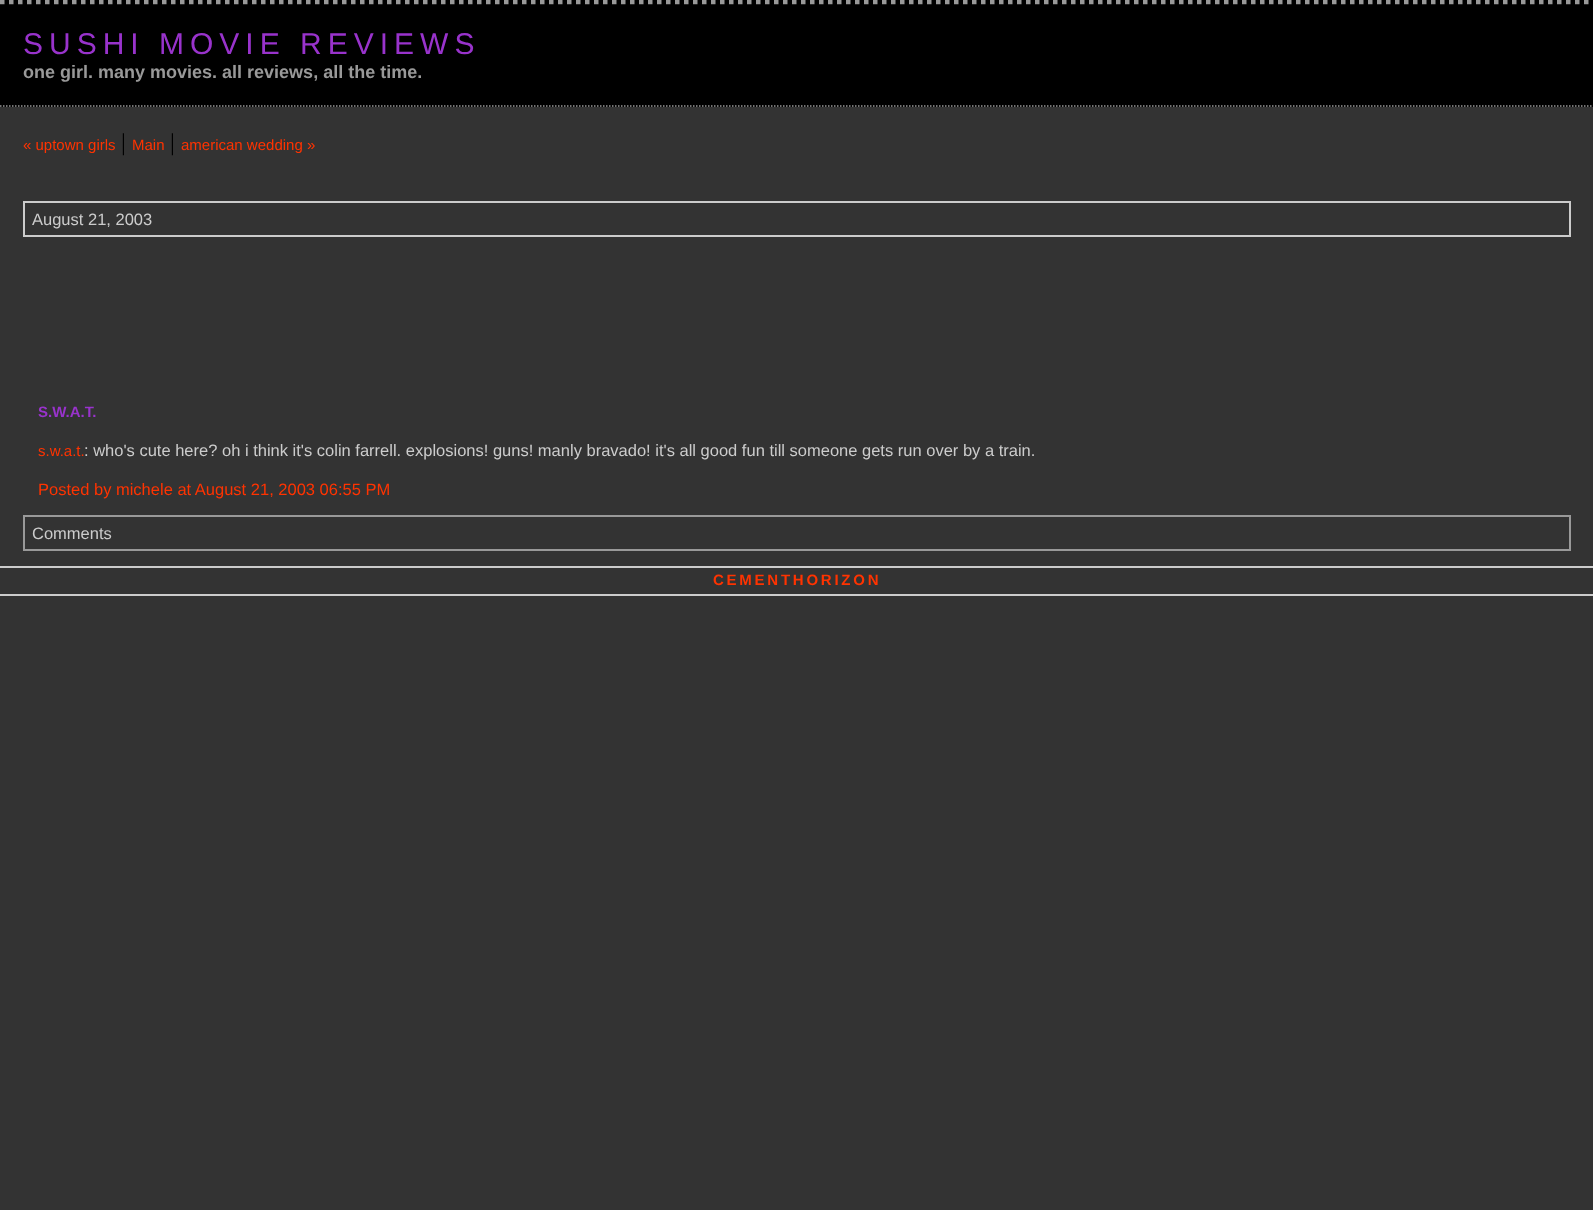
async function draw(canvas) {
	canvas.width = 1593;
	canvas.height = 1210;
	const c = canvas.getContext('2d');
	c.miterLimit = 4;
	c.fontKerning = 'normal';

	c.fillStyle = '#333';
	c.fillRect(0, 0, 1593, 1210);
	c.fillStyle = '#000';
	c.fillRect(0, 0, 1593, 107);
	c.beginPath();
	c.moveTo(0, 2);
	c.lineTo(1593, 2);
	c.strokeStyle = '#999';
	c.lineWidth = 4.5;
	c.setLineDash([4.5, 4.5]);
	c.stroke();
	c.beginPath();
	c.moveTo(0, 106);
	c.lineTo(1593, 106);
	c.lineWidth = 1.5;
	c.setLineDash([1.5, 1.5]);
	c.stroke();
	c.letterSpacing = '6px';
	c.font = '30px Liberation Sans';
	c.fillStyle = '#93c';
	c.fillText('SUSHI MOVIE REVIEWS', 23, 54);
	c.letterSpacing = '0px';
	c.font = 'bold 18px Liberation Sans';
	c.fillStyle = '#999';
	c.fillText('one girl. many movies. all reviews, all the time.', 23, 78);
	c.font = '15px Liberation Sans';
	c.fillStyle = '#f30';
	c.fillText('« uptown girls', 23, 150);
	c.font = '24px Liberation Serif';
	c.fillStyle = '#000';
	c.fillText('|', 121, 150);
	c.font = '15px Liberation Sans';
	c.fillStyle = '#f30';
	c.fillText('Main', 132, 150);
	c.font = '24px Liberation Serif';
	c.fillStyle = '#000';
	c.fillText('|', 170, 150);
	c.font = '15px Liberation Sans';
	c.fillStyle = '#f30';
	c.fillText('american wedding »', 181, 150);
	c.strokeStyle = '#ccc';
	c.lineWidth = 2;
	c.setLineDash([]);
	c.strokeRect(24, 202, 1546, 34);
	c.font = '16.5px Liberation Sans';
	c.fillStyle = '#ccc';
	c.fillText('August 21, 2003', 32, 225);
	c.font = 'bold 15px Liberation Sans';
	c.fillStyle = '#93c';
	c.fillText('S.W.A.T.', 38, 417);
	c.font = '15px Liberation Sans';
	c.fillStyle = '#f30';
	c.fillText('s.w.a.t.', 38, 456);
	c.font = '16.5px Liberation Sans';
	c.fillStyle = '#ccc';
	c.fillText(': who\'s cute here? oh i think it\'s colin farrell. explosions! guns! manly bravado! it\'s all good fun till someone gets run over by a train.', 84, 456);
	c.fillStyle = '#f30';
	c.fillText('Posted by michele at August 21, 2003 06:55 PM', 38, 495);
	c.strokeStyle = '#999';
	c.strokeRect(24, 516, 1546, 34);
	c.fillStyle = '#ccc';
	c.fillText('Comments', 32, 539);
	c.fillRect(0, 566, 1593, 2);
	c.fillRect(0, 594, 1593, 2);
	c.letterSpacing = '2.75px';
	c.font = 'bold 15px Liberation Sans';
	c.fillStyle = '#f30';
	c.fillText('CEMENTHORIZON', 713, 585);
}

draw(document.querySelector('canvas'));
